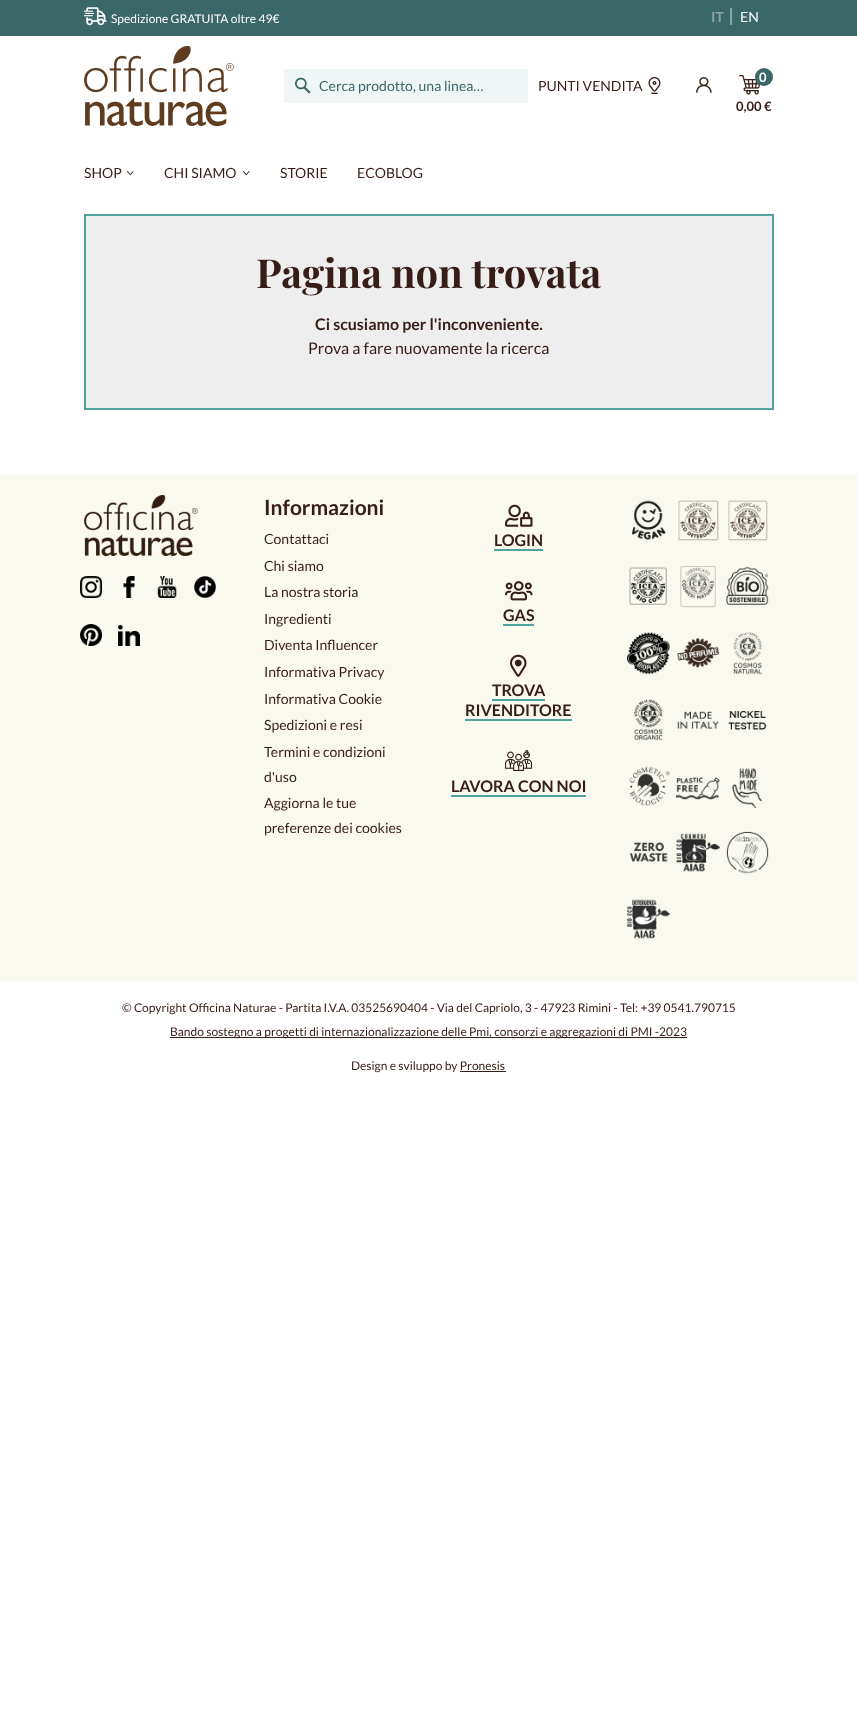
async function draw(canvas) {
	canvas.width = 857;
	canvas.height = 1711;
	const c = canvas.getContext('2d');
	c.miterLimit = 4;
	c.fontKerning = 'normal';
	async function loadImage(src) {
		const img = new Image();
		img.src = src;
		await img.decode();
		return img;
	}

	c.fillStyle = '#fff';
	c.fillRect(0, 0, 857, 1711);
	c.fillStyle = '#3a6868';
	c.fillRect(0, 0, 857, 36);
	c.drawImage(await loadImage('img1.png'), 84, 7, 23, 19);
	c.font = '12px Lato';
	c.fillStyle = '#fff';
	c.fillText('Spedizione GRATUITA oltre 49€', 111, 23);
	c.font = 'bold 14px Lato';
	c.fillStyle = '#89a4a4';
	c.fillText('IT', 711, 22);
	c.fillRect(730, 8, 2, 17);
	c.font = '14px Lato';
	c.fillStyle = '#fff';
	c.fillText('EN', 740, 22);
	c.drawImage(await loadImage('img2.png'), 84, 46, 150, 80);
	c.fillStyle = '#f0f5f6';
	c.fillRect(284, 69, 244, 34);
	c.drawImage(await loadImage('img3.png'), 295, 77, 16, 17);
	c.fillStyle = '#3a6868';
	c.fillText('Cerca prodotto, una linea…', 319, 91);
	c.fillStyle = '#371d17';
	c.fillText('PUNTI VENDITA', 538, 91);
	c.drawImage(await loadImage('img4.png'), 648, 77, 13, 17);
	c.drawImage(await loadImage('img5.png'), 696, 77, 16, 16);
	c.drawImage(await loadImage('img6.png'), 739, 75, 21, 20);
	c.fillStyle = '#3a6868';
	c.beginPath();
	c.arc(764, 77, 9, 0, 2 * Math.PI);
	c.fill();
	c.font = 'bold 13px Lato';
	c.fillStyle = '#fff';
	c.fillText('0', 759, 82);
	c.fillStyle = '#371d17';
	c.fillText('0,00 €', 736, 111);
	c.font = '14px Lato';
	c.fillText('SHOP', 84, 178);
	c.drawImage(await loadImage('img7.png'), 127, 171, 7, 5);
	c.fillText('CHI SIAMO', 164, 178);
	c.drawImage(await loadImage('img7.png'), 243, 171, 7, 5);
	c.fillText('STORIE', 280, 178);
	c.fillText('ECOBLOG', 357, 178);
	c.fillStyle = '#eee';
	c.beginPath();
	c.rect(85, 215, 688, 194);
	c.fill();
	c.strokeStyle = '#52a39e';
	c.lineWidth = 2;
	c.stroke();
	c.font = 'bold 40px Playfair Display';
	c.fillStyle = '#371d17';
	c.fillText('Pagina non trovata', 256, 288);
	c.font = 'bold 16px Lato';
	c.fillText('Ci scusiamo per l\'inconveniente.', 315, 330);
	c.font = '16px Lato';
	c.fillText('Prova a fare nuovamente la ricerca', 308, 354);
	c.fillStyle = '#faf9ef';
	c.fillRect(0, 475, 857, 506);
	c.drawImage(await loadImage('img8.png'), 84, 495, 114, 61);
	c.drawImage(await loadImage('img9.png'), 80, 576, 22, 22);
	c.drawImage(await loadImage('img10.png'), 123, 576, 12, 22);
	c.drawImage(await loadImage('img11.png'), 157, 576, 20, 22);
	c.drawImage(await loadImage('img12.png'), 194, 576, 22, 22);
	c.drawImage(await loadImage('img13.png'), 80, 624, 22, 22);
	c.drawImage(await loadImage('img14.png'), 118, 624, 22, 22);
	c.font = 'bold 21px Lato';
	c.fillStyle = '#371d17';
	c.fillText('Informazioni', 264, 515);
	c.font = '14px Lato';
	for (const [text, x, y] of [
		['Contattaci', 264, 544],
		['Chi siamo', 264, 571],
		['La nostra storia', 264, 597],
		['Ingredienti', 264, 624],
		['Diventa Influencer', 264, 650],
		['Informativa Privacy', 264, 677],
		['Informativa Cookie', 264, 704],
		['Spedizioni e resi', 264, 730],
		['Termini e condizioni', 264, 757],
		['d\'uso', 264, 782],
		['Aggiorna le tue', 264, 808],
		['preferenze dei cookies', 264, 833],
	]) {
		c.fillText(text, x, y);
	}
	c.drawImage(await loadImage('img15.png'), 505, 504, 28, 23);
	c.font = 'bold 16px Lato';
	c.fillText('LOGIN', 494, 546);
	c.fillStyle = '#52a39e';
	c.fillRect(494, 549, 49, 2);
	c.drawImage(await loadImage('img16.png'), 505, 581, 28, 20);
	c.fillStyle = '#371d17';
	c.fillText('GAS', 503, 621);
	c.fillStyle = '#52a39e';
	c.fillRect(503, 624, 31, 2);
	c.drawImage(await loadImage('img17.png'), 510, 654, 17, 23);
	c.fillStyle = '#371d17';
	c.fillText('TROVA', 492, 696);
	c.fillStyle = '#52a39e';
	c.fillRect(492, 699, 53, 2);
	c.fillStyle = '#371d17';
	c.fillText('RIVENDITORE', 465, 716);
	c.fillStyle = '#52a39e';
	c.fillRect(465, 719, 107, 2);
	c.drawImage(await loadImage('img18.png'), 505, 750, 27, 21);
	c.fillStyle = '#371d17';
	c.fillText('LAVORA CON NOI', 451, 792);
	c.fillStyle = '#52a39e';
	c.fillRect(451, 795, 135, 2);
	c.drawImage(await loadImage('img19.png'), 632, 500, 34, 40);
	c.drawImage(await loadImage('img20.png'), 678, 500, 41, 41);
	c.drawImage(await loadImage('img21.png'), 728, 500, 40, 41);
	c.drawImage(await loadImage('img22.png'), 629, 567, 38, 38);
	c.drawImage(await loadImage('img23.png'), 680, 566, 36, 42);
	c.drawImage(await loadImage('img24.png'), 726, 566, 43, 39);
	c.drawImage(await loadImage('img25.png'), 627, 632, 43, 43);
	c.drawImage(await loadImage('img26.png'), 676, 638, 44, 30);
	c.drawImage(await loadImage('img27.png'), 733, 632, 29, 43);
	c.drawImage(await loadImage('img28.png'), 634, 699, 29, 42);
	c.drawImage(await loadImage('img29.png'), 677, 711, 42, 18);
	c.drawImage(await loadImage('img30.png'), 728, 711, 39, 19);
	c.drawImage(await loadImage('img31.png'), 629, 766, 41, 40);
	c.drawImage(await loadImage('img32.png'), 676, 777, 44, 23);
	c.drawImage(await loadImage('img33.png'), 732, 768, 31, 40);
	c.drawImage(await loadImage('img34.png'), 629, 842, 39, 20);
	c.drawImage(await loadImage('img35.png'), 676, 833, 44, 39);
	c.drawImage(await loadImage('img36.png'), 726, 831, 43, 43);
	c.drawImage(await loadImage('img37.png'), 627, 899, 43, 40);
	c.font = '12px Lato';
	c.fillStyle = '#371d17';
	c.fillText('© Copyright Officina Naturae - Partita I.V.A. 03525690404 - Via del Capriolo, 3 - 47923 Rimini - Tel: +39 0541.790715', 122, 1012);
	c.fillRect(170, 1037, 517, 1);
	c.fillText('Bando sostegno a progetti di internazionalizzazione delle Pmi, consorzi e aggregazioni di PMI -2023', 170, 1036);
	c.fillText('Design e sviluppo by Pronesis', 351, 1070);
	c.fillRect(460, 1071, 46, 1);
}

draw(document.querySelector('canvas'));
